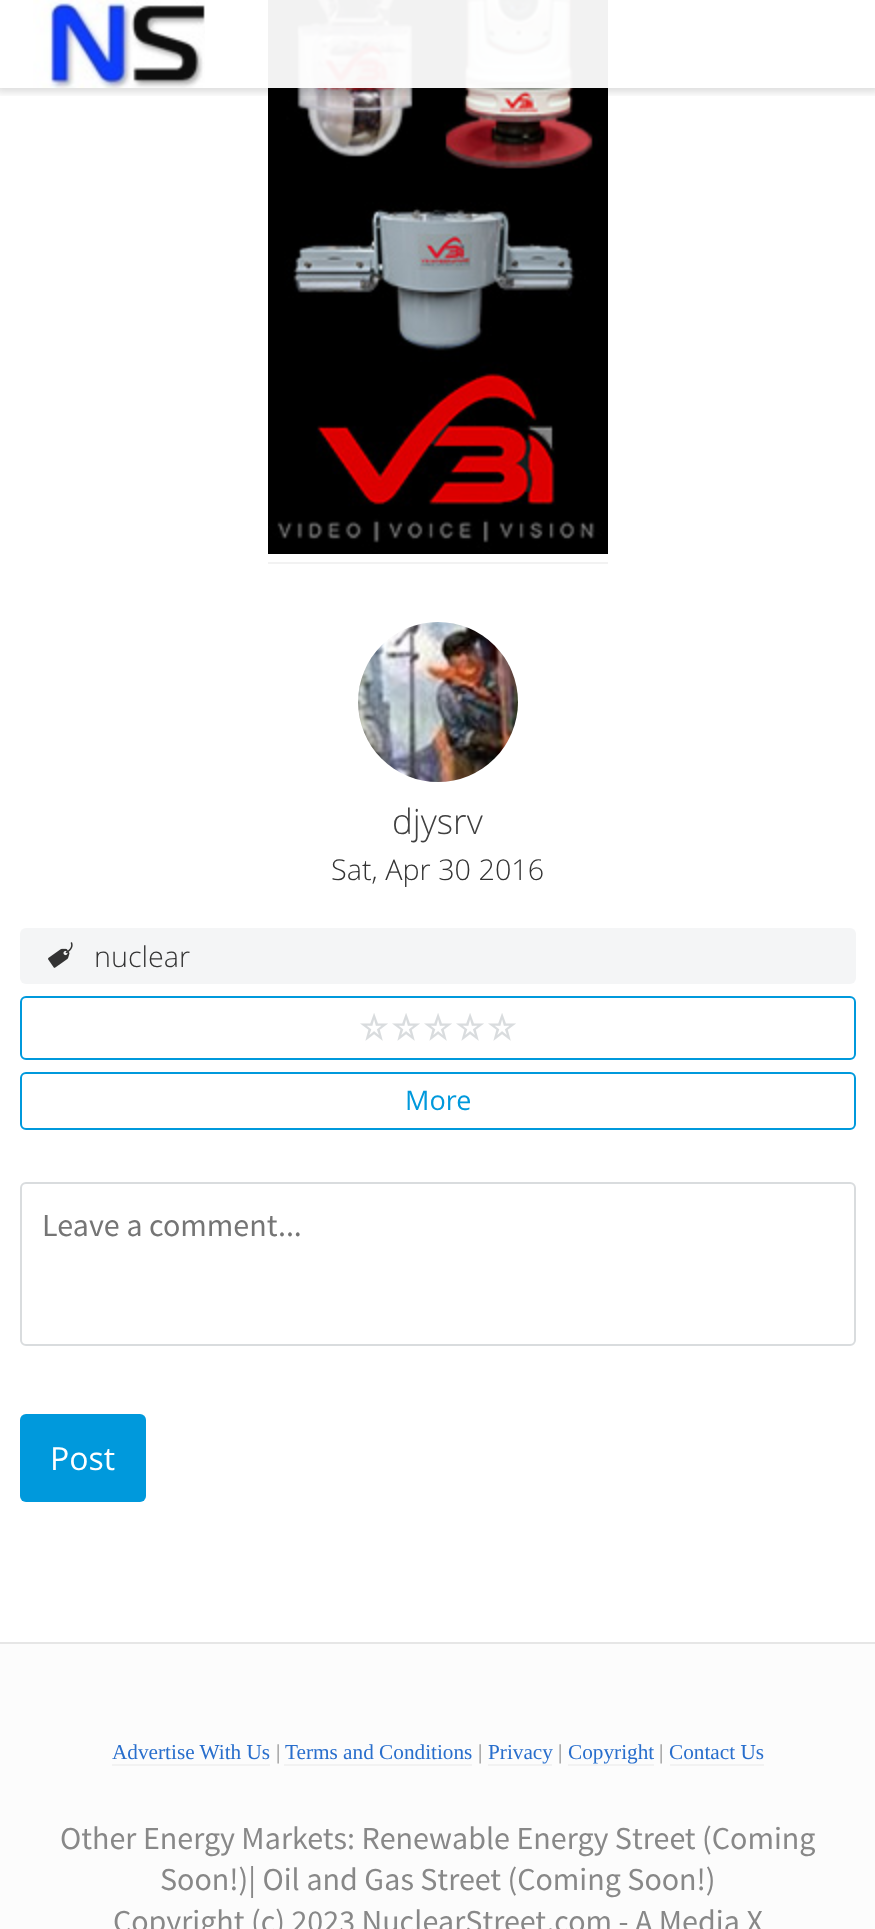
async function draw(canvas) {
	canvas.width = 875;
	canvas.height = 1929;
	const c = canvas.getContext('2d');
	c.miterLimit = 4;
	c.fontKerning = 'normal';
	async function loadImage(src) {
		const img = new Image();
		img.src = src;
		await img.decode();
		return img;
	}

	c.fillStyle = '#fff';
	c.fillRect(0, 0, 875, 1929);
	c.drawImage(await loadImage('img2.png'), 268, 0, 340, 554);
	c.save();
	c.beginPath();
	c.rect(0, 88, 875, 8);
	c.clip();
	c.fillStyle = '#00000024';
	c.filter = 'blur(4px)';
	c.beginPath();
	c.rect(-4, -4, 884, 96);
	c.fill();
	c.filter = 'none';
	c.restore();
	c.fillStyle = '#fffffff2';
	c.fillRect(268, 0, 340, 88);
	c.drawImage(await loadImage('img1.png'), 33, 0, 172, 88);
	c.fillStyle = '#f2f2f2';
	c.fillRect(268, 562, 340, 2);
	c.drawImage(await loadImage('img3.png'), 358, 622, 160, 160);
	c.font = '300 35px Open Sans';
	c.fillStyle = '#404040';
	c.fillText('djysrv', 392, 834);
	c.font = '300 28.75px Open Sans';
	c.fillStyle = '#333';
	c.fillText('Sat, Apr 30 2016', 331, 880);
	c.fillStyle = '#f4f5f6';
	c.beginPath();
	c.roundRect(20, 928, 836, 56, 6);
	c.fill();
	c.drawImage(await loadImage('img4.png'), 48, 942, 25, 26);
	c.fillStyle = '#333';
	c.fillText('nuclear', 94, 967);
	c.beginPath();
	c.roundRect(21, 997, 834, 62, 5);
	c.strokeStyle = '#0099dc';
	c.lineWidth = 2;
	c.stroke();
	c.drawImage(await loadImage('img5.png'), 360, 1013, 14, 28);
	c.drawImage(await loadImage('img6.png'), 374, 1013, 14, 28);
	c.drawImage(await loadImage('img5.png'), 392, 1013, 14, 28);
	c.drawImage(await loadImage('img6.png'), 406, 1013, 14, 28);
	c.drawImage(await loadImage('img5.png'), 424, 1013, 14, 28);
	c.drawImage(await loadImage('img6.png'), 438, 1013, 14, 28);
	c.drawImage(await loadImage('img5.png'), 456, 1013, 14, 28);
	c.drawImage(await loadImage('img6.png'), 470, 1013, 14, 28);
	c.drawImage(await loadImage('img5.png'), 488, 1013, 14, 28);
	c.drawImage(await loadImage('img6.png'), 502, 1013, 14, 28);
	c.beginPath();
	c.roundRect(21, 1073, 834, 56, 5);
	c.stroke();
	c.font = '27px Open Sans';
	c.fillStyle = '#0099dc';
	c.fillText('More', 405, 1110);
	c.beginPath();
	c.roundRect(21, 1183, 834, 162, 5);
	c.strokeStyle = '#d9dcde';
	c.stroke();
	c.font = '32px Source Sans Pro';
	c.fillStyle = '#757575';
	c.fillText('Leave a comment...', 42, 1236);
	c.fillStyle = '#0099dc';
	c.beginPath();
	c.roundRect(20, 1414, 126, 88, 6);
	c.fill();
	c.font = '32px Open Sans';
	c.fillStyle = '#fff';
	c.fillText('Post', 50, 1470);
	c.fillStyle = '#fcfcfc';
	c.fillRect(0, 1644, 875, 285);
	c.fillStyle = '#e6e6e6';
	c.fillRect(0, 1642, 875, 2);
	c.font = '21.25px Liberation Serif';
	c.fillStyle = '#286ecc';
	c.fillText('Advertise With Us', 112, 1759);
	c.fillStyle = '#f2f2f2';
	c.fillRect(112, 1764, 158, 2);
	c.fillStyle = '#888';
	c.fillText('|', 276, 1759);
	c.fillStyle = '#286ecc';
	c.fillText('Terms and Conditions', 285, 1759);
	c.fillStyle = '#f2f2f2';
	c.fillRect(284, 1764, 188, 2);
	c.fillStyle = '#888';
	c.fillText('|', 478, 1759);
	c.fillStyle = '#286ecc';
	c.fillText('Privacy', 488, 1759);
	c.fillStyle = '#f2f2f2';
	c.fillRect(488, 1764, 64, 2);
	c.fillStyle = '#888';
	c.fillText('|', 558, 1759);
	c.fillStyle = '#286ecc';
	c.fillText('Copyright', 568, 1759);
	c.fillStyle = '#f2f2f2';
	c.fillRect(568, 1764, 86, 2);
	c.fillStyle = '#888';
	c.fillText('|', 659, 1759);
	c.fillStyle = '#286ecc';
	c.fillText('Contact Us', 669, 1759);
	c.fillStyle = '#f2f2f2';
	c.fillRect(670, 1764, 94, 2);
	c.font = '32px Source Sans Pro';
	c.fillStyle = '#888';
	for (const [text, x, y] of [
		['Other Energy Markets: Renewable Energy Street (Coming', 60, 1849],
		['Soon!)| Oil and Gas Street (Coming Soon!)', 160, 1890],
		['Copyright (c) 2023 NuclearStreet.com - A Media X', 113, 1932],
	]) {
		c.fillText(text, x, y);
	}
}

draw(document.querySelector('canvas'));
